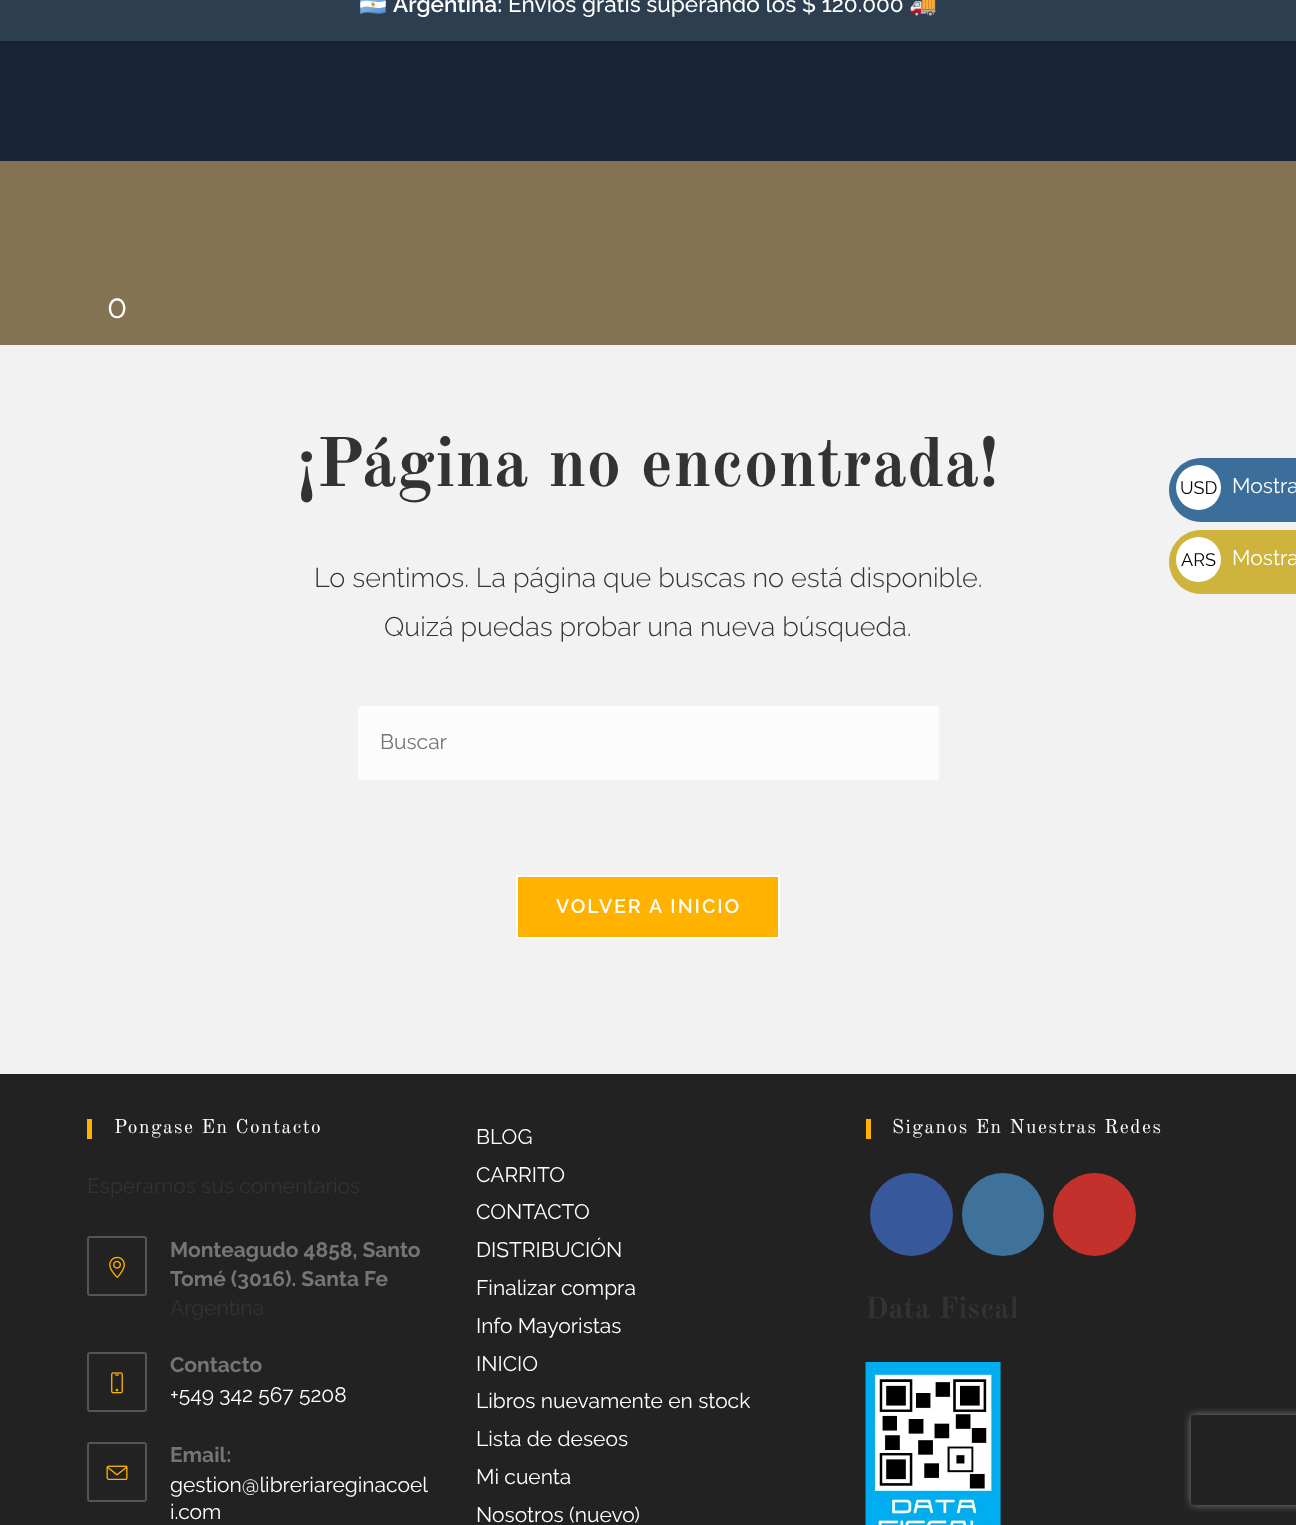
async function draw(canvas) {
	canvas.width = 1296;
	canvas.height = 1525;
	const c = canvas.getContext('2d');
	c.miterLimit = 4;
	c.fontKerning = 'normal';
	async function loadImage(src) {
		const img = new Image();
		img.src = src;
		await img.decode();
		return img;
	}

	c.fillStyle = '#f2f2f2';
	c.fillRect(0, 0, 1296, 1525);
	c.fillStyle = '#192537';
	c.fillRect(0, 41, 1296, 120);
	c.fillStyle = '#0000001a';
	c.filter = 'blur(3px)';
	c.beginPath();
	c.rect(0, -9, 1296, 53);
	c.fill();
	c.filter = 'none';
	c.fillStyle = '#2c3e50';
	c.fillRect(0, 0, 1296, 41);
	c.font = '22.5px Noto Color Emoji';
	c.fillStyle = '#fff';
	c.fillText('🇦🇷', 359, 12);
	c.font = '100 22.5px Raleway';
	c.fillText('Argentina:', 393, 12);
	c.font = '500 22.5px Raleway';
	c.fillText('Envíos gratis superando los $ 120.000', 508, 12);
	c.font = '22.5px Noto Color Emoji';
	c.fillText('🚚', 909, 12);
	c.fillStyle = '#837353';
	c.fillRect(0, 161, 1296, 184);
	c.font = '33px Raleway';
	c.fillStyle = '#fff';
	c.fillText('0', 107, 318);
	c.font = 'bold 69px Old Standard TT';
	c.fillStyle = '#333';
	c.fillText('¡Página no encontrada!', 297, 486);
	c.font = '300 27px Raleway';
	c.fillText('Lo sentimos. La página que buscas no está disponible.', 314, 587);
	c.fillText('Quizá puedas probar una nueva búsqueda.', 384, 636);
	c.fillStyle = '#fcfcfc';
	c.beginPath();
	c.moveTo(360, 705);
	c.lineTo(936, 705);
	c.bezierCurveTo(938, 705, 939, 706, 939, 708);
	c.lineTo(939, 780);
	c.lineTo(357, 780);
	c.lineTo(357, 708);
	c.bezierCurveTo(357, 706, 358, 705, 360, 705);
	c.closePath();
	c.fill();
	c.beginPath();
	c.roundRect(357, 705, 583, 79, 4);
	c.strokeStyle = '#f2f2f2';
	c.lineWidth = 2;
	c.stroke();
	c.font = '21px Raleway';
	c.fillStyle = '#757575';
	c.fillText('Buscar', 380, 749);
	c.fillStyle = '#ffb200';
	c.beginPath();
	c.rect(517, 876, 262, 62);
	c.fill();
	c.strokeStyle = '#fff';
	c.stroke();
	c.letterSpacing = '2px';
	c.font = '100 19.5px Raleway';
	c.fillStyle = '#fff';
	c.fillText('VOLVER A INICIO', 556, 913);
	c.fillStyle = '#222';
	c.fillRect(0, 1074, 1296, 451);
	c.fillStyle = '#ffb200';
	c.fillRect(87, 1119, 5, 20);
	c.letterSpacing = '1.5px';
	c.font = '19.5px Old Standard TT';
	c.fillStyle = '#fff';
	c.fillText('Pongase En Contacto', 114, 1133);
	c.letterSpacing = '0px';
	c.font = '21px Raleway';
	c.fillStyle = '#333';
	c.fillText('Esperamos sus comentarios', 87, 1193);
	c.beginPath();
	c.roundRect(88, 1237, 58, 58, 2);
	c.strokeStyle = '#555';
	c.stroke();
	c.drawImage(await loadImage('img1.png'), 109, 1256, 16, 22);
	c.font = '100 21px "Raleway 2"';
	c.fillStyle = '#757575';
	c.fillText('Monteagudo 4858, Santo', 170, 1257);
	c.fillText('Tomé (3016). Santa Fe', 170, 1286);
	c.font = '21px Raleway';
	c.fillStyle = '#333';
	c.fillText('Argentina', 170, 1315);
	c.beginPath();
	c.roundRect(88, 1353, 58, 58, 2);
	c.stroke();
	c.drawImage(await loadImage('img2.png'), 111, 1372, 12, 22);
	c.font = '100 21px "Raleway 2"';
	c.fillStyle = '#757575';
	c.fillText('Contacto', 170, 1372);
	c.font = '21px Raleway';
	c.fillStyle = '#fff';
	c.fillText('+549 342 567 5208', 170, 1402);
	c.beginPath();
	c.roundRect(88, 1443, 58, 58, 2);
	c.stroke();
	c.drawImage(await loadImage('img3.png'), 106, 1465, 22, 15);
	c.font = '100 21px "Raleway 2"';
	c.fillStyle = '#757575';
	c.fillText('Email:', 170, 1462);
	c.font = '21px Raleway';
	c.fillStyle = '#fff';
	for (const [text, x, y] of [
		['gestion@libreriareginacoel', 170, 1492],
		['i.com', 170, 1519],
		['BLOG', 476, 1144],
		['CARRITO', 476, 1182],
		['CONTACTO', 476, 1219],
		['DISTRIBUCIÓN', 476, 1257],
		['Finalizar compra', 476, 1295],
		['Info Mayoristas', 476, 1333],
		['INICIO', 476, 1371],
		['Libros nuevamente en stock', 476, 1408],
		['Lista de deseos', 476, 1446],
		['Mi cuenta', 476, 1484],
		['Nosotros (nuevo)', 476, 1522],
	]) {
		c.fillText(text, x, y);
	}
	c.fillStyle = '#ffb200';
	c.fillRect(866, 1119, 5, 20);
	c.letterSpacing = '1.5px';
	c.font = '19.5px Old Standard TT';
	c.fillStyle = '#fff';
	c.fillText('Siganos En Nuestras Redes', 892, 1133);
	c.fillStyle = '#37589b';
	c.beginPath();
	c.arc(911.5, 1214.5, 41.5, 0, 2 * Math.PI);
	c.fill();
	c.fillStyle = '#3f729b';
	c.beginPath();
	c.roundRect(962, 1173, 82, 83, 41);
	c.fill();
	c.fillStyle = '#c4302b';
	c.beginPath();
	c.arc(1094.5, 1214.5, 41.5, 0, 2 * Math.PI);
	c.fill();
	c.letterSpacing = '0px';
	c.font = 'bold 30px Old Standard TT';
	c.fillStyle = '#333';
	c.fillText('Data Fiscal', 865, 1318);
	c.drawImage(await loadImage('img4.png'), 865, 1362, 136, 163);
	c.fillStyle = '#3b6e9b';
	c.beginPath();
	c.moveTo(1201, 458);
	c.lineTo(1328, 458);
	c.lineTo(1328, 522);
	c.lineTo(1201, 522);
	c.bezierCurveTo(1183.5, 522, 1169, 507.5, 1169, 490);
	c.bezierCurveTo(1169, 472.5, 1183.5, 458, 1201, 458);
	c.closePath();
	c.fill();
	c.fillStyle = '#fff';
	c.beginPath();
	c.arc(1198.5, 487.5, 22.5, 0, 2 * Math.PI);
	c.fill();
	c.font = '18px Raleway';
	c.fillStyle = '#000';
	c.fillText('USD', 1180, 494);
	c.font = '21px Raleway';
	c.fillStyle = '#fff';
	c.fillText('Mostra', 1232, 493);
	c.fillStyle = '#ceb43d';
	c.beginPath();
	c.moveTo(1201, 530);
	c.lineTo(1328, 530);
	c.lineTo(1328, 594);
	c.lineTo(1201, 594);
	c.bezierCurveTo(1183.5, 594, 1169, 579.5, 1169, 562);
	c.bezierCurveTo(1169, 544.5, 1183.5, 530, 1201, 530);
	c.closePath();
	c.fill();
	c.fillStyle = '#fff';
	c.beginPath();
	c.arc(1198.5, 559.5, 22.5, 0, 2 * Math.PI);
	c.fill();
	c.font = '18px Raleway';
	c.fillStyle = '#000';
	c.fillText('ARS', 1181, 566);
	c.font = '21px Raleway';
	c.fillStyle = '#fff';
	c.fillText('Mostra', 1232, 565);
	c.save();
	c.beginPath();
	c.moveTo(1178, 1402);
	c.lineTo(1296, 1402);
	c.lineTo(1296, 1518);
	c.lineTo(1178, 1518);
	c.closePath();
	c.moveTo(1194, 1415);
	c.lineTo(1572, 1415);
	c.bezierCurveTo(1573.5, 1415, 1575, 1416.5, 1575, 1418);
	c.lineTo(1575, 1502);
	c.bezierCurveTo(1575, 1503.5, 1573.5, 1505, 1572, 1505);
	c.lineTo(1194, 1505);
	c.bezierCurveTo(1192.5, 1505, 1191, 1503.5, 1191, 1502);
	c.lineTo(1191, 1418);
	c.bezierCurveTo(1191, 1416.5, 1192.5, 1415, 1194, 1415);
	c.closePath();
	c.clip('evenodd');
	c.fillStyle = '#808080';
	c.filter = 'blur(4px)';
	c.beginPath();
	c.roundRect(1191, 1415, 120, 90, 3);
	c.fill();
	c.filter = 'none';
	c.restore();
}

draw(document.querySelector('canvas'));
